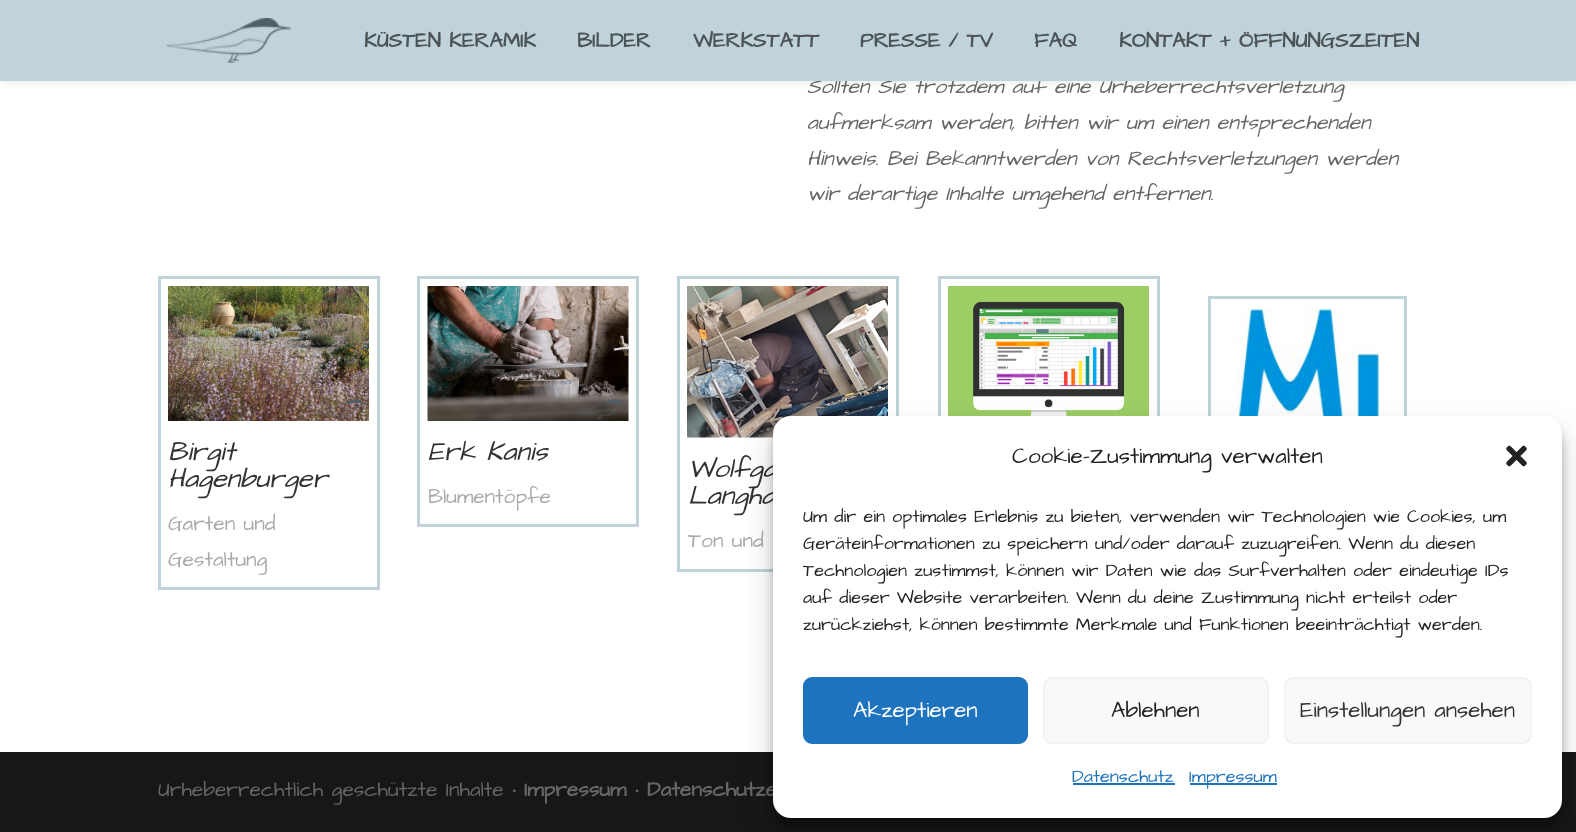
async function draw(canvas) {
	canvas.width = 1576;
	canvas.height = 832;
	const c = canvas.getContext('2d');
	c.miterLimit = 4;
	c.fontKerning = 'normal';
	async function loadImage(src) {
		const img = new Image();
		img.src = src;
		await img.decode();
		return img;
	}

	c.fillStyle = '#fff';
	c.fillRect(0, 0, 1576, 832);
	c.fillStyle = '#0000001a';
	c.filter = 'blur(5px)';
	c.beginPath();
	c.rect(0, 0, 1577, 81);
	c.fill();
	c.filter = 'none';
	c.font = 'italic 21px Architects Daughter';
	c.fillStyle = '#666';
	c.fillText('Sollten Sie trotzdem auf eine Urheberrechtsverletzung', 807, 93);
	c.fillStyle = '#c0d3da';
	c.fillRect(0, 0, 1576, 81);
	c.drawImage(await loadImage('img1.png'), 166, 18, 125, 45);
	c.font = 'bold 21px Architects Daughter';
	c.fillStyle = '#4d5457';
	for (const [text, x, y] of [
		['KÜSTEN KERAMIK', 364, 47],
		['BILDER', 577, 47],
		['WERKSTATT', 693, 47],
		['PRESSE / TV', 860, 47],
		['FAQ', 1034, 47],
		['KONTAKT + ÖFFNUNGSZEITEN', 1119, 47],
	]) {
		c.fillText(text, x, y);
	}
	c.font = 'italic 21px Architects Daughter';
	c.fillStyle = '#666';
	for (const [text, x, y] of [
		['aufmerksam werden, bitten wir um einen entsprechenden', 807, 129],
		['Hinweis. Bei Bekanntwerden von Rechtsverletzungen werden', 807, 165],
		['wir derartige Inhalte umgehend entfernen.', 807, 200],
	]) {
		c.fillText(text, x, y);
	}
	c.strokeStyle = '#c0d3da';
	c.lineWidth = 3;
	c.strokeRect(159.5, 277.5, 219, 311);
	c.drawImage(await loadImage('img2.png'), 168, 286, 201, 135);
	c.font = 'italic 27px Architects Daughter';
	c.fillStyle = '#333';
	c.fillText('Birgit', 168, 460);
	c.fillText('Hagenburger', 168, 487);
	c.font = '21px Architects Daughter';
	c.fillStyle = '#aaa';
	c.fillText('Garten und', 168, 530);
	c.fillText('Gestaltung', 168, 566);
	c.strokeRect(418.5, 277.5, 219, 248);
	c.drawImage(await loadImage('img3.png'), 427, 286, 202, 135);
	c.font = 'italic 27px Architects Daughter';
	c.fillStyle = '#333';
	c.fillText('Erk Kanis', 428, 460);
	c.font = '21px Architects Daughter';
	c.fillStyle = '#aaa';
	c.fillText('Blumentöpfe', 428, 503);
	c.strokeRect(678.5, 277.5, 219, 293);
	c.drawImage(await loadImage('img4.png'), 687, 286, 201, 152);
	c.font = 'italic 27px Architects Daughter';
	c.fillStyle = '#333';
	c.fillText('Wolfga', 688, 477);
	c.fillText('Langha', 688, 504);
	c.font = '21px Architects Daughter';
	c.fillStyle = '#aaa';
	c.fillText('Ton und', 688, 547);
	c.strokeRect(939.5, 277.5, 219, 294);
	c.drawImage(await loadImage('img5.png'), 948, 286, 201, 130);
	c.strokeRect(1209.5, 297.5, 196, 339);
	c.drawImage(await loadImage('img6.png'), 1236, 309, 152, 107);
	c.fillStyle = '#171717';
	c.fillRect(0, 752, 1576, 80);
	c.fillStyle = '#666';
	c.fillText('Urheberrechtlich geschützte Inhalte •', 158, 796);
	c.font = 'bold 21px Architects Daughter';
	c.fillText('Impressum', 524, 796);
	c.font = '21px Architects Daughter';
	c.fillText('•', 635, 796);
	c.font = 'bold 21px Architects Daughter';
	c.fillText('Datenschutze', 647, 796);
	c.fillStyle = '#0000003b';
	c.filter = 'blur(4.5px)';
	c.beginPath();
	c.roundRect(773, 425, 789, 402, 18);
	c.fill();
	c.filter = 'none';
	c.fillStyle = '#00000030';
	c.filter = 'blur(15px)';
	c.beginPath();
	c.roundRect(773, 431, 789, 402, 18);
	c.fill();
	c.filter = 'none';
	c.fillStyle = '#fff';
	c.beginPath();
	c.roundRect(773, 416, 789, 402, 18);
	c.fill();
	c.font = '22.5px Architects Daughter';
	c.fillStyle = '#222';
	c.fillText('Cookie-Zustimmung verwalten', 1012, 463);
	c.drawImage(await loadImage('img7.png'), 1506, 445, 21, 22);
	c.font = '18px Architects Daughter';
	for (const [text, x, y] of [
		['Um dir ein optimales Erlebnis zu bieten, verwenden wir Technologien wie Cookies, um', 803, 522],
		['Geräteinformationen zu speichern und/oder darauf zuzugreifen. Wenn du diesen', 803, 549],
		['Technologien zustimmst, können wir Daten wie das Surfverhalten oder eindeutige IDs', 803, 576],
		['auf dieser Website verarbeiten. Wenn du deine Zustimmung nicht erteilst oder', 803, 603],
		['zurückziehst, können bestimmte Merkmale und Funktionen beeinträchtigt werden.', 803, 630],
	]) {
		c.fillText(text, x, y);
	}
	c.fillStyle = '#1e73be';
	c.beginPath();
	c.roundRect(804, 678, 223, 65, 8);
	c.fill();
	c.strokeStyle = '#1e73be';
	c.lineWidth = 2;
	c.stroke();
	c.font = '22.5px Architects Daughter';
	c.fillStyle = '#fff';
	c.fillText('Akzeptieren', 853, 717);
	c.fillStyle = '#f9f9f9';
	c.beginPath();
	c.roundRect(1044, 678, 224, 65, 8);
	c.fill();
	c.strokeStyle = '#f2f2f2';
	c.stroke();
	c.fillStyle = '#222';
	c.fillText('Ablehnen', 1111, 717);
	c.fillStyle = '#f9f9f9';
	c.beginPath();
	c.roundRect(1285, 678, 246, 65, 8);
	c.fill();
	c.stroke();
	c.fillStyle = '#333';
	c.fillText('Einstellungen ansehen', 1300, 717);
	c.font = '18px Architects Daughter';
	c.fillStyle = '#1e73be';
	c.fillText('Datenschutz', 1072, 782);
	c.fillRect(1073, 783, 102, 2);
	c.fillRect(1190, 783, 87, 2);
	c.fillText('Impressum', 1189, 782);
}

draw(document.querySelector('canvas'));
